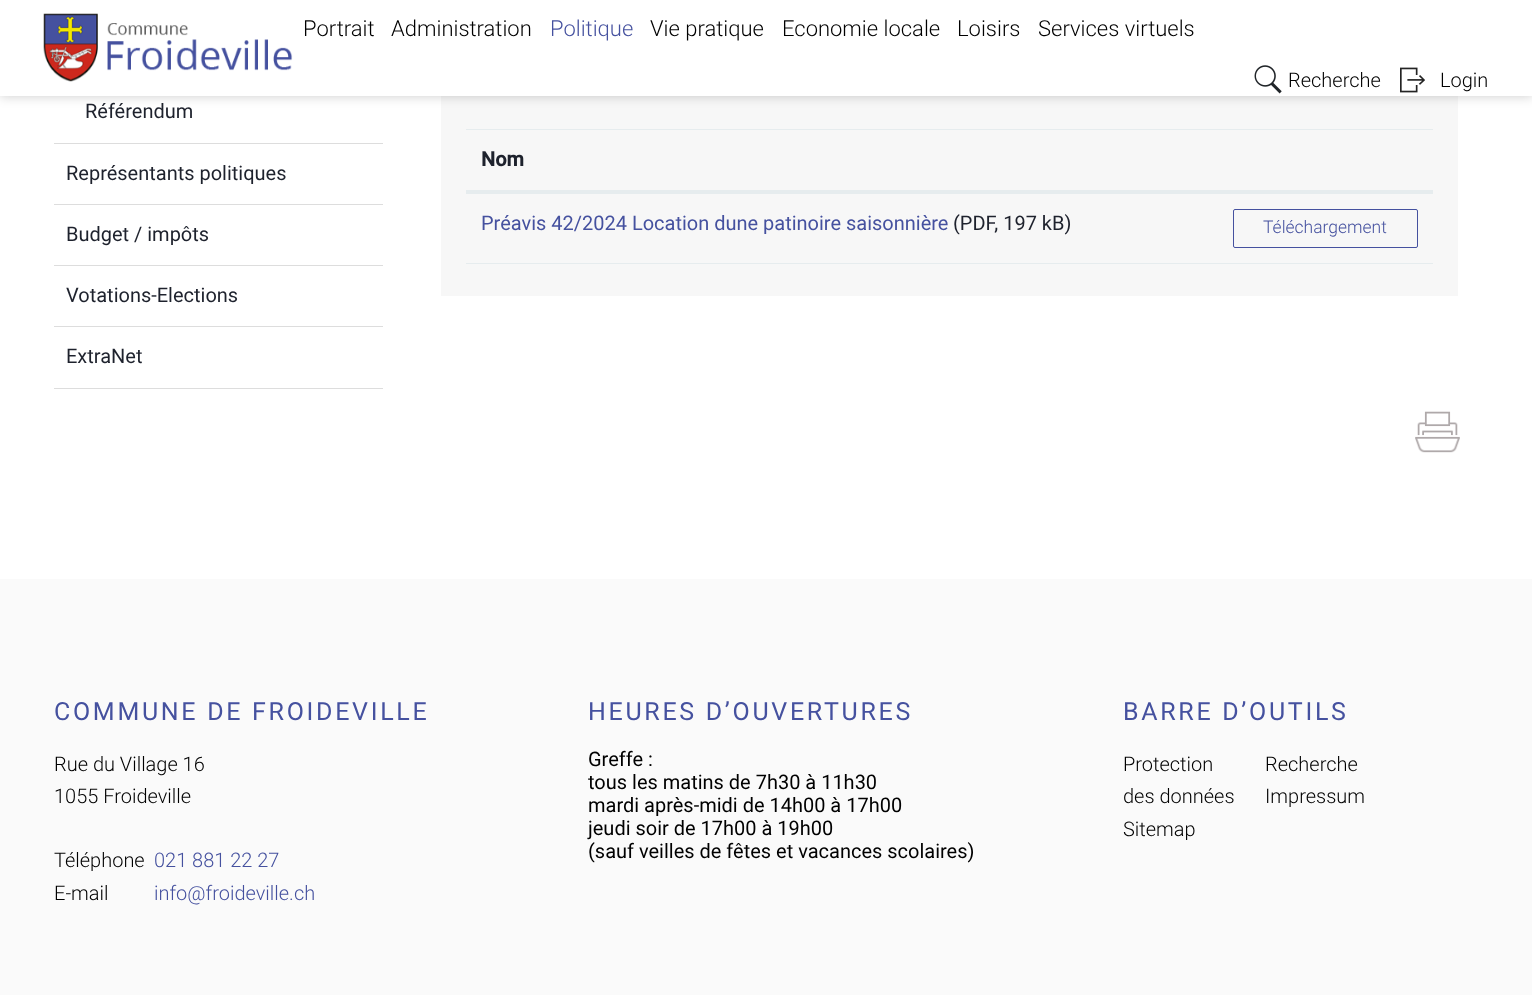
async function draw(canvas) {
	canvas.width = 1532;
	canvas.height = 995;
	const c = canvas.getContext('2d');
	c.miterLimit = 4;
	c.fontKerning = 'normal';
	async function loadImage(src) {
		const img = new Image();
		img.src = src;
		await img.decode();
		return img;
	}

	c.fillStyle = '#fff';
	c.fillRect(0, 0, 1532, 995);
	c.fillStyle = '#f7f7f7';
	c.fillRect(441, 96, 1017, 200);
	c.fillStyle = '#00000033';
	c.filter = 'blur(6px)';
	c.beginPath();
	c.rect(0, 0, 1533, 96);
	c.fill();
	c.filter = 'none';
	c.fillStyle = '#fff';
	c.fillRect(0, 0, 1532, 96);
	c.drawImage(await loadImage('img1.png'), 43, 13, 250, 69);
	c.font = '300 22px Roboto';
	c.fillStyle = '#000';
	c.fillText('Portrait', 303, 36);
	c.fillText('Administration', 391, 36);
	c.fillStyle = '#45519f';
	c.fillText('Politique', 550, 36);
	c.fillStyle = '#000';
	for (const [text, x, y] of [
		['Vie pratique', 650, 36],
		['Economie locale', 782, 36],
		['Loisirs', 957, 36],
		['Services virtuels', 1038, 36],
	]) {
		c.fillText(text, x, y);
	}
	c.drawImage(await loadImage('img2.png'), 1254, 65, 28, 29);
	c.font = '300 20px Roboto';
	c.fillText('Recherche', 1288, 87);
	c.drawImage(await loadImage('img3.png'), 1400, 67, 25, 26);
	c.fillText('Login', 1440, 87);
	c.fillStyle = '#ddd';
	c.fillRect(54, 143, 329, 1);
	c.font = '20px Roboto';
	c.fillStyle = '#1e222d';
	c.fillText('Référendum', 85, 118);
	c.fillStyle = '#ddd';
	c.fillRect(54, 204, 329, 1);
	c.fillStyle = '#1e222d';
	c.fillText('Représentants politiques', 66, 180);
	c.fillStyle = '#ddd';
	c.fillRect(54, 265, 329, 1);
	c.fillStyle = '#1e222d';
	c.fillText('Budget / impôts', 66, 241);
	c.fillStyle = '#ddd';
	c.fillRect(54, 326, 329, 1);
	c.fillStyle = '#1e222d';
	c.fillText('Votations-Elections', 66, 302);
	c.fillStyle = '#ddd';
	c.fillRect(54, 388, 329, 1);
	c.fillStyle = '#1e222d';
	c.fillText('ExtraNet', 66, 363);
	for (const [x, y, w, h, color] of [
		[466, 263, 967, 1, '#e6ecee'],
		[466, 129, 967, 1, '#e6ecee'],
		[466, 190, 967, 3, '#e6ecee'],
	]) {
		c.fillStyle = color;
		c.fillRect(x, y, w, h);
	}
	c.font = 'bold 20px Roboto';
	c.fillStyle = '#1e222d';
	c.fillText('Nom', 481, 166);
	c.fillStyle = '#e6ecee';
	c.fillRect(466, 193, 967, 1);
	c.font = '20px Roboto';
	c.fillStyle = '#45519f';
	c.fillText('Préavis 42/2024 Location dune patinoire saisonnière', 481, 230);
	c.fillStyle = '#1e222d';
	c.fillText('(PDF, 197 kB)', 953, 230);
	c.beginPath();
	c.roundRect(1233.5, 209.5, 184, 38, 1.5);
	c.strokeStyle = '#45519f';
	c.stroke();
	c.font = '300 17.5px Roboto';
	c.fillStyle = '#45519f';
	c.fillText('Téléchargement', 1263, 233);
	c.drawImage(await loadImage('img4.png'), 1415, 411, 45, 42);
	c.fillStyle = '#fafafa';
	c.fillRect(0, 579, 1532, 416);
	c.letterSpacing = '2.7px';
	c.font = '25px Roboto';
	c.fillStyle = '#45519f';
	c.fillText('COMMUNE DE FROIDEVILLE', 54, 720);
	c.letterSpacing = '0px';
	c.font = '300 20px Roboto';
	c.fillStyle = '#000';
	for (const [text, x, y] of [
		['Rue du Village 16', 54, 771],
		['1055 Froideville', 54, 803],
		['Téléphone', 54, 867],
	]) {
		c.fillText(text, x, y);
	}
	c.fillStyle = '#45519f';
	c.fillText('021 881 22 27', 154, 867);
	c.fillStyle = '#000';
	c.fillText('E-mail', 54, 900);
	c.fillStyle = '#45519f';
	c.fillText('info@froideville.ch', 154, 900);
	c.letterSpacing = '2.7px';
	c.font = '25px Roboto';
	c.fillText('HEURES D’OUVERTURES', 588, 720);
	c.letterSpacing = '0px';
	c.font = '20px Roboto';
	c.fillStyle = '#000';
	for (const [text, x, y] of [
		['Greffe :', 588, 766],
		['tous les matins de 7h30 à 11h30', 588, 789],
		['mardi après-midi de 14h00 à 17h00', 588, 812],
		['jeudi soir de 17h00 à 19h00', 588, 835],
		['(sauf veilles de fêtes et vacances scolaires)', 588, 858],
	]) {
		c.fillText(text, x, y);
	}
	c.letterSpacing = '2.7px';
	c.font = '25px Roboto';
	c.fillStyle = '#45519f';
	c.fillText('BARRE D’OUTILS', 1123, 720);
	c.letterSpacing = '0px';
	c.font = '300 20px Roboto';
	c.fillStyle = '#000';
	for (const [text, x, y] of [
		['Protection', 1123, 771],
		['des données', 1123, 803],
		['Recherche', 1265, 771],
		['Impressum', 1265, 803],
		['Sitemap', 1123, 836],
	]) {
		c.fillText(text, x, y);
	}
}

draw(document.querySelector('canvas'));
